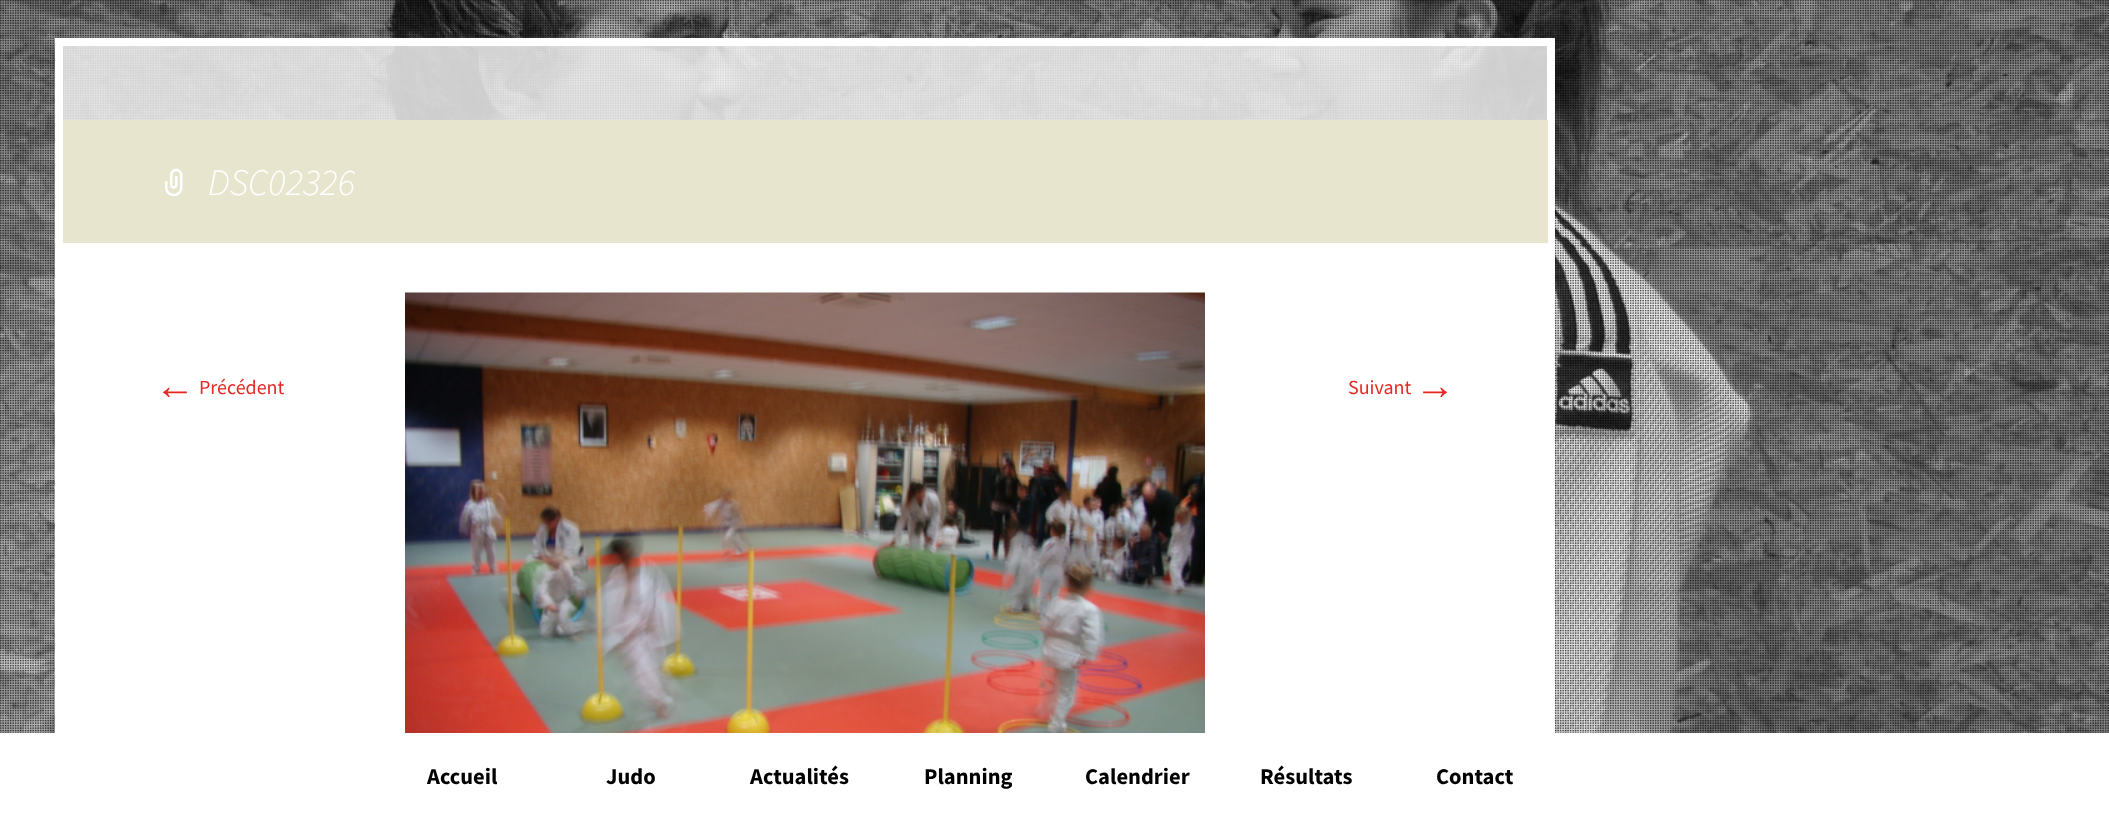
async function draw(canvas) {
	canvas.width = 2109;
	canvas.height = 820;
	const c = canvas.getContext('2d');
	c.miterLimit = 4;
	c.fontKerning = 'normal';
	async function loadImage(src) {
		const img = new Image();
		img.src = src;
		await img.decode();
		return img;
	}

	c.fillStyle = '#fff';
	c.fillRect(0, 0, 2109, 820);
	c.drawImage(await loadImage('img1.png'), 0, 0, 2109, 733);
	c.drawImage(await loadImage('img2.png'), 0, 0, 2109, 733);
	c.fillStyle = '#f0f0f0d9';
	c.fillRect(63, 46, 1484, 74);
	c.strokeStyle = '#fff';
	c.lineWidth = 8;
	c.strokeRect(59, 42, 1492, 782);
	c.fillStyle = '#e8e5ce';
	c.fillRect(63, 120, 1485, 123);
	c.drawImage(await loadImage('img3.png'), 165, 168, 18, 29);
	c.font = 'italic 300 37.5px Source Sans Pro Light';
	c.fillStyle = '#fff';
	c.fillText('DSC02326', 208, 195);
	c.fillRect(63, 243, 1484, 490);
	c.drawImage(await loadImage('img4.png'), 405, 292, 800, 441);
	c.font = '40px Liberation Sans';
	c.fillStyle = '#e52822';
	c.fillText('←', 155, 399);
	c.font = '20px Source Sans Pro';
	c.fillText('Précédent', 199, 394);
	c.fillText('Suivant', 1348, 394);
	c.font = '40px Liberation Sans';
	c.fillText('→', 1415, 399);
	c.font = 'bold 22.5px Source Sans Pro';
	c.fillStyle = '#000';
	for (const [text, x, y] of [
		['Accueil', 427, 784],
		['Judo', 606, 784],
		['Actualités', 750, 784],
		['Planning', 924, 784],
		['Calendrier', 1085, 784],
		['Résultats', 1260, 784],
		['Contact', 1436, 784],
	]) {
		c.fillText(text, x, y);
	}
}

draw(document.querySelector('canvas'));
